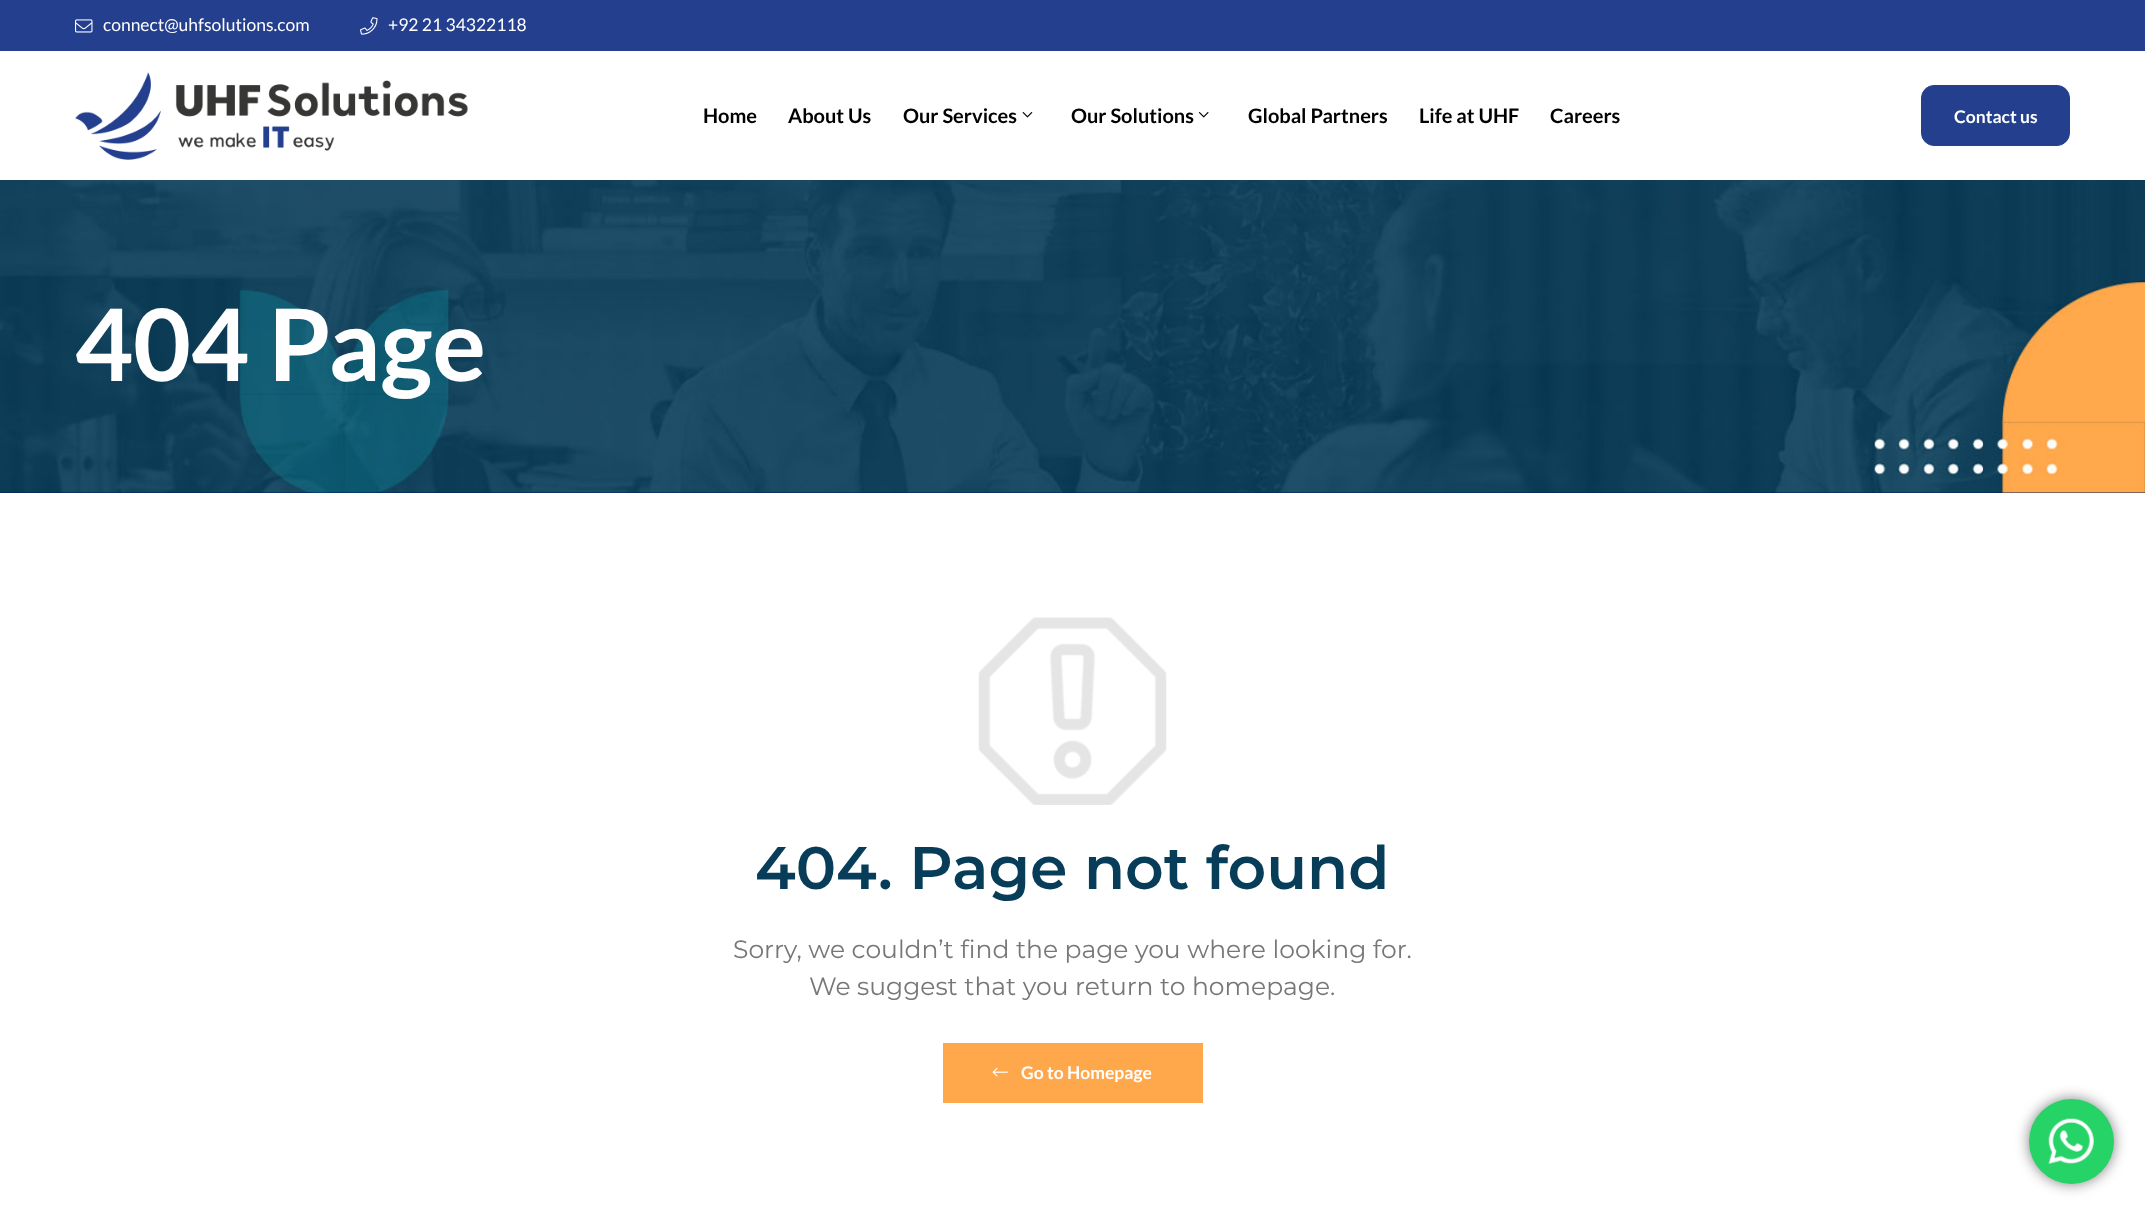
async function draw(canvas) {
	canvas.width = 2145;
	canvas.height = 1214;
	const c = canvas.getContext('2d');
	c.miterLimit = 4;
	c.fontKerning = 'normal';
	async function loadImage(src) {
		const img = new Image();
		img.src = src;
		await img.decode();
		return img;
	}

	c.fillStyle = '#fff';
	c.fillRect(0, 0, 2145, 1214);
	c.fillStyle = '#233f8e';
	c.fillRect(0, 0, 2145, 51);
	c.drawImage(await loadImage('img1.png'), 75, 19, 18, 14);
	c.font = '17.5px Lato';
	c.fillStyle = '#fff';
	c.fillText('connect@uhfsolutions.com', 103, 31);
	c.drawImage(await loadImage('img2.png'), 360, 17, 18, 18);
	c.fillText('+92 21 34322118', 388, 31);
	c.drawImage(await loadImage('img3.png'), 75, 72, 393, 88);
	c.font = 'bold 20px Lato';
	c.fillStyle = '#000';
	for (const [text, x, y] of [
		['Home', 703, 123],
		['About Us', 788, 123],
		['Our Services', 903, 123],
	]) {
		c.fillText(text, x, y);
	}
	c.drawImage(await loadImage('img4.png'), 1022, 112, 11, 6);
	c.fillText('Our Solutions', 1071, 123);
	c.drawImage(await loadImage('img5.png'), 1198, 112, 11, 6);
	for (const [text, x, y] of [
		['Global Partners', 1248, 123],
		['Life at UHF', 1419, 123],
		['Careers', 1550, 123],
	]) {
		c.fillText(text, x, y);
	}
	c.fillStyle = '#233f8e';
	c.beginPath();
	c.roundRect(1921.5, 85.5, 148, 60, 12.5);
	c.fill();
	c.strokeStyle = '#233f8e';
	c.stroke();
	c.font = 'bold 17.5px Lato';
	c.fillStyle = '#fff';
	c.fillText('Contact us', 1954, 123);
	c.fillStyle = '#002060';
	c.fillRect(0, 492, 2145, 1);
	c.drawImage(await loadImage('img6.png'), 0, 180, 2145, 313);
	c.font = 'bold 100px Lato';
	c.fillStyle = '#fff';
	c.fillText('404 Page', 75, 381);
	c.drawImage(await loadImage('img7.png'), 978, 617, 189, 188);
	c.font = '600 60px Montserrat';
	c.fillStyle = '#083d59';
	c.fillText('404. Page not found', 755, 889);
	c.font = '25px Montserrat';
	c.fillStyle = '#777';
	c.fillText('Sorry, we couldn’t find the page you where looking for.', 733, 958);
	c.fillText('We suggest that you return to homepage.', 809, 995);
	c.fillStyle = '#ffa84b';
	c.fillRect(943, 1043, 260, 60);
	c.drawImage(await loadImage('img8.png'), 992, 1067, 16, 10);
	c.font = 'bold 17.5px Lato';
	c.fillStyle = '#fff';
	c.fillText('Go to Homepage', 1021, 1079);
	c.fillStyle = '#00000080';
	c.filter = 'blur(7px)';
	c.beginPath();
	c.roundRect(2029, 1099, 85, 85, 42.5);
	c.fill();
	c.filter = 'none';
	c.fillStyle = '#25d366';
	c.beginPath();
	c.arc(2071.5, 1141.5, 42.5, 0, 2 * Math.PI);
	c.fill();
	c.drawImage(await loadImage('img9.png'), 2048, 1118, 46, 46);
}

draw(document.querySelector('canvas'));
